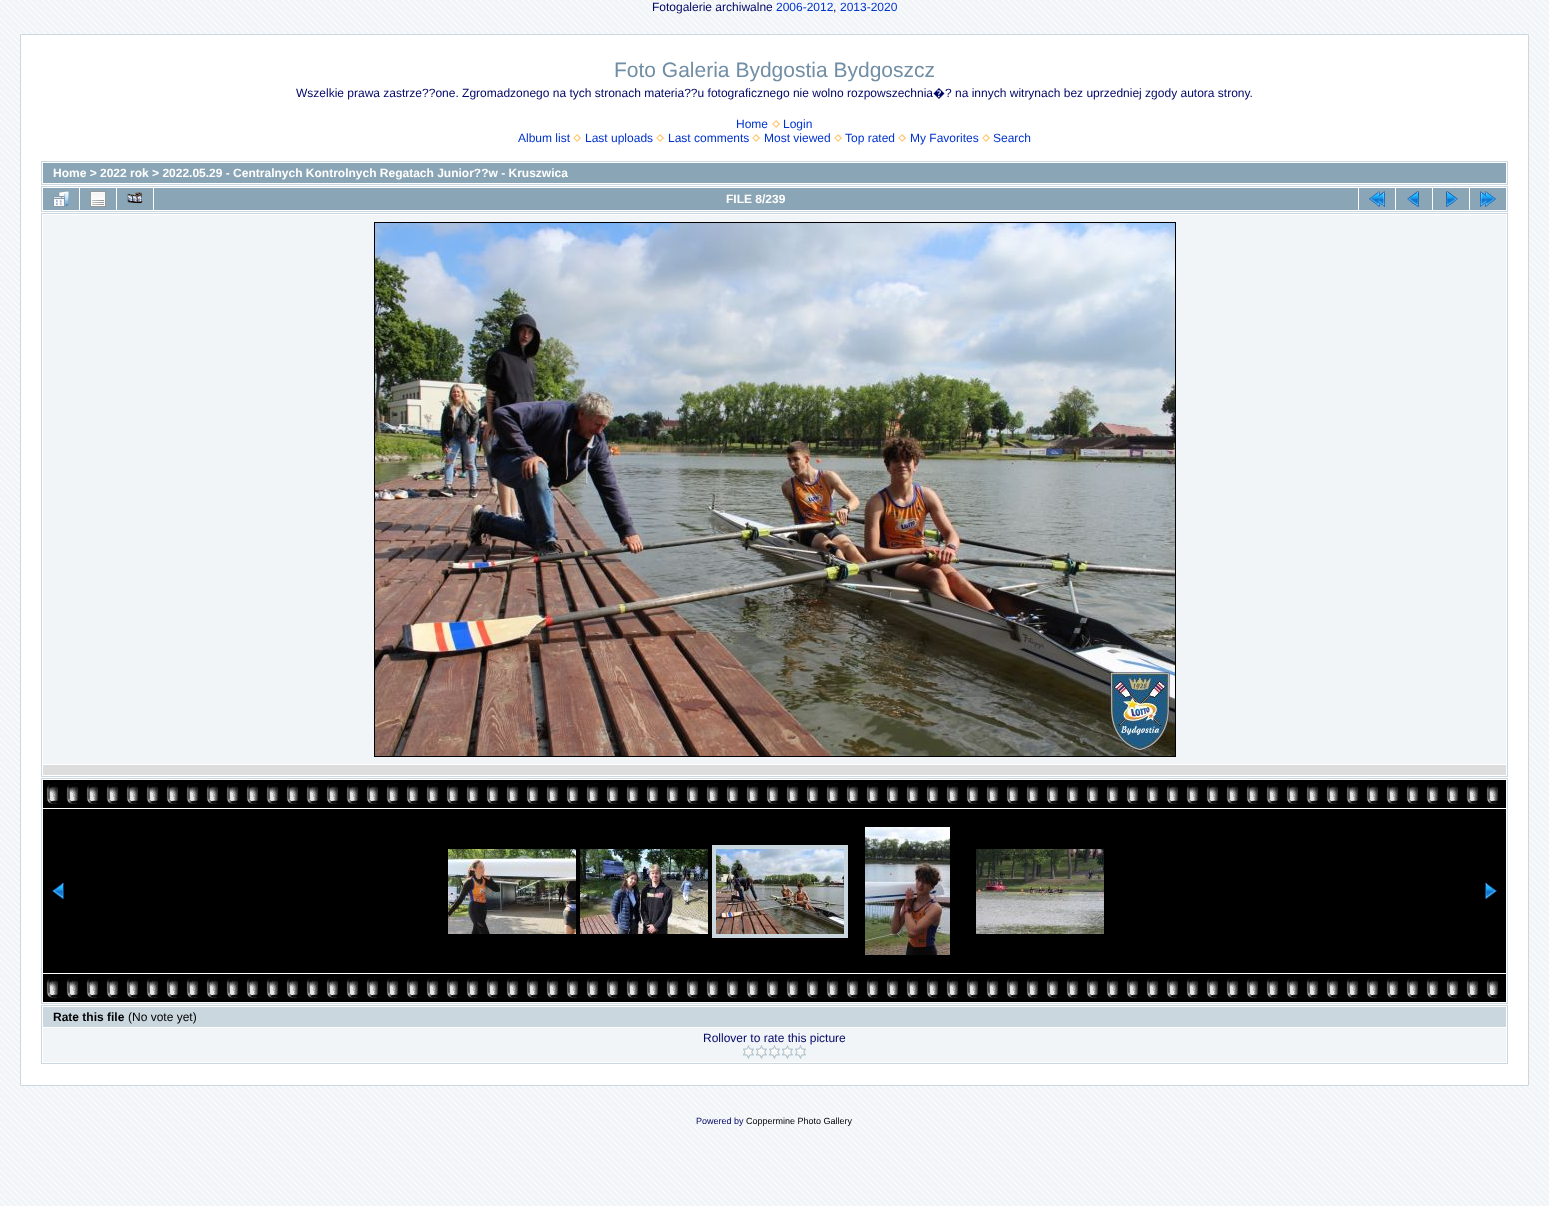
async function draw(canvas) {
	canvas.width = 1549;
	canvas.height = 1206;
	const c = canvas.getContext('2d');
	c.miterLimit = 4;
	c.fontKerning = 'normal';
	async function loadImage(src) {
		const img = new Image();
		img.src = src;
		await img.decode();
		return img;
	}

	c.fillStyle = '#f2f5f7';
	c.fillRect(0, 0, 1549, 1206);
	c.drawImage(await loadImage('img1.png'), 0, 0, 1549, 1206);
	c.font = '12px Liberation Sans';
	c.fillStyle = '#000666';
	c.fillText('Fotogalerie archiwalne', 652, 11);
	c.fillStyle = '#03c';
	c.fillText('2006-2012', 776, 11);
	c.fillStyle = '#000666';
	c.fillText(',', 833, 11);
	c.fillStyle = '#03c';
	c.fillText('2013-2020', 840, 11);
	c.fillStyle = '#fff';
	c.beginPath();
	c.rect(20.5, 34.5, 1508, 1051);
	c.fill();
	c.strokeStyle = '#ccd7e0';
	c.stroke();
	c.font = '21px Liberation Sans';
	c.fillStyle = '#718ea5';
	c.fillText('Foto Galeria Bydgostia Bydgoszcz', 614, 77);
	c.font = '12px Liberation Sans';
	c.fillStyle = '#000666';
	c.fillText('Wszelkie prawa zastrze??one. Zgromadzonego na tych stronach materia??u fotograficznego nie wolno rozpowszechnia', 296, 97);
	c.font = '12px Noto Sans';
	c.fillText('�', 933, 97);
	c.font = '12px Liberation Sans';
	c.fillText('? na innych witrynach bez uprzedniej zgody autora strony.', 945, 97);
	c.fillStyle = '#03c';
	c.fillText('Home', 736, 128);
	c.drawImage(await loadImage('img2.png'), 772, 120, 8, 8);
	c.fillText('Login', 783, 128);
	c.fillText('Album list', 518, 142);
	c.drawImage(await loadImage('img2.png'), 573, 134, 8, 8);
	c.fillText('Last uploads', 585, 142);
	c.drawImage(await loadImage('img2.png'), 656, 134, 8, 8);
	c.fillText('Last comments', 668, 142);
	c.drawImage(await loadImage('img2.png'), 752, 134, 8, 8);
	c.fillText('Most viewed', 764, 142);
	c.drawImage(await loadImage('img2.png'), 834, 134, 8, 8);
	c.fillText('Top rated', 845, 142);
	c.drawImage(await loadImage('img2.png'), 898, 134, 8, 8);
	c.fillText('My Favorites', 910, 142);
	c.drawImage(await loadImage('img2.png'), 982, 134, 8, 8);
	c.fillText('Search', 993, 142);
	c.strokeRect(41.5, 161.5, 1466, 23);
	c.fillStyle = '#8aa5b5';
	c.fillRect(43, 163, 1463, 20);
	c.font = 'bold 12px Liberation Sans';
	c.fillStyle = '#fff';
	c.fillText('Home > 2022 rok > 2022.05.29 - Centralnych Kontrolnych Regatach Junior??w - Kruszwica', 53, 177);
	c.strokeRect(41.5, 186.5, 1466, 25);
	c.fillStyle = '#8aa5b5';
	c.fillRect(43, 188, 36, 22);
	c.drawImage(await loadImage('img3.png'), 53, 191, 16, 16);
	c.fillRect(80, 188, 36, 22);
	c.drawImage(await loadImage('img4.png'), 90, 191, 16, 16);
	c.fillRect(117, 188, 36, 22);
	c.drawImage(await loadImage('img5.png'), 127, 192, 16, 12);
	c.fillRect(154, 188, 1204, 22);
	c.fillStyle = '#fff';
	c.fillText('FILE 8/239', 726, 203);
	c.fillStyle = '#8aa5b5';
	c.fillRect(1359, 188, 36, 22);
	c.drawImage(await loadImage('img6.png'), 1369, 191, 16, 16);
	c.fillRect(1396, 188, 36, 22);
	c.drawImage(await loadImage('img7.png'), 1407, 191, 12, 16);
	c.fillRect(1433, 188, 36, 22);
	c.drawImage(await loadImage('img8.png'), 1446, 191, 12, 16);
	c.fillRect(1470, 188, 36, 22);
	c.drawImage(await loadImage('img9.png'), 1480, 191, 16, 16);
	c.strokeRect(41.5, 213.5, 1466, 563);
	c.fillStyle = '#f2f5f7';
	c.fillRect(43, 215, 1463, 549);
	c.strokeStyle = '#000';
	c.strokeRect(374.5, 222.5, 801, 534);
	c.drawImage(await loadImage('img10.png'), 375, 223, 800, 533);
	c.fillStyle = '#ddd';
	c.fillRect(43, 765, 1463, 10);
	c.strokeStyle = '#ccd7e0';
	c.strokeRect(41.5, 778.5, 1466, 225);
	c.fillStyle = '#000';
	c.fillRect(43, 780, 1463, 28);
	c.drawImage(await loadImage('img11.png'), 46, 780, 1454, 24);
	c.fillRect(43, 809, 1463, 164);
	c.drawImage(await loadImage('img12.png'), 52, 883, 12, 16);
	c.drawImage(await loadImage('img13.png'), 448, 849, 128, 85);
	c.drawImage(await loadImage('img14.png'), 580, 849, 128, 85);
	c.strokeStyle = '#cbd7de';
	c.lineWidth = 4;
	c.strokeRect(714, 847, 132, 89);
	c.drawImage(await loadImage('img15.png'), 716, 849, 128, 85);
	c.drawImage(await loadImage('img16.png'), 865, 827, 85, 128);
	c.drawImage(await loadImage('img17.png'), 976, 849, 128, 85);
	c.drawImage(await loadImage('img18.png'), 1485, 883, 12, 16);
	c.fillRect(43, 974, 1463, 28);
	c.drawImage(await loadImage('img11.png'), 46, 974, 1454, 24);
	c.strokeStyle = '#ccd7e0';
	c.lineWidth = 1;
	c.strokeRect(41.5, 1005.5, 1466, 58);
	c.fillStyle = '#cbd7de';
	c.fillRect(43, 1007, 1463, 20);
	c.fillStyle = '#000';
	c.fillText('Rate this file', 53, 1021);
	c.font = '12px Liberation Sans';
	c.fillText('(No vote yet)', 128, 1021);
	c.fillStyle = '#f2f5f7';
	c.fillRect(43, 1028, 1463, 34);
	c.fillStyle = '#000666';
	c.fillText('Rollover to rate this picture', 703, 1042);
	c.drawImage(await loadImage('img19.png'), 742, 1045, 13, 14);
	c.drawImage(await loadImage('img19.png'), 755, 1045, 13, 14);
	c.drawImage(await loadImage('img19.png'), 768, 1045, 13, 14);
	c.drawImage(await loadImage('img19.png'), 781, 1045, 13, 14);
	c.drawImage(await loadImage('img19.png'), 794, 1045, 13, 14);
	c.font = '9px Liberation Sans';
	c.fillText('Powered by', 696, 1124);
	c.fillStyle = '#000';
	c.fillText('Coppermine Photo Gallery', 746, 1124);
}

draw(document.querySelector('canvas'));
